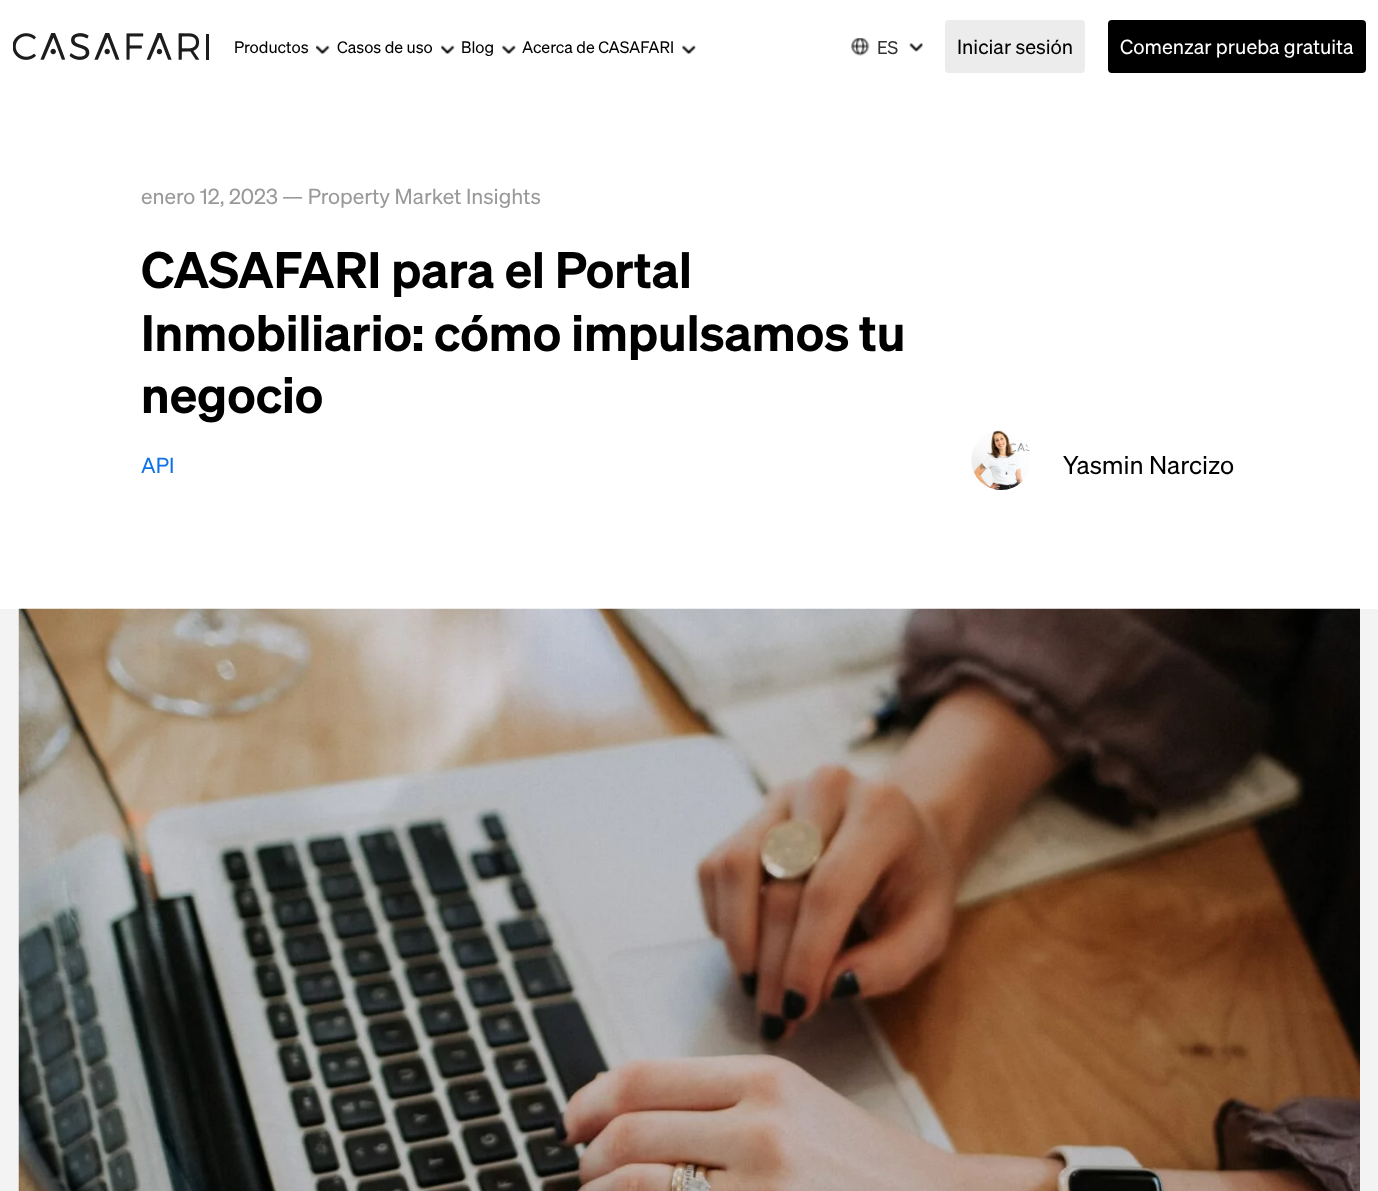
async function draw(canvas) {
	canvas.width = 1378;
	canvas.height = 1191;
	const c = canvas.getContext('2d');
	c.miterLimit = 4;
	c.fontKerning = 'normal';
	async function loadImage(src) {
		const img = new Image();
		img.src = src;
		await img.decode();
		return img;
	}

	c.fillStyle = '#fff';
	c.fillRect(0, 0, 1378, 1191);
	c.drawImage(await loadImage('img1.png'), 13, 33, 196, 27);
	c.font = '16.25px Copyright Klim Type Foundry';
	c.fillStyle = '#000';
	c.fillText('Productos', 234, 53);
	c.drawImage(await loadImage('img2.png'), 316, 45, 14, 9);
	c.fillText('Casos de uso', 337, 53);
	c.drawImage(await loadImage('img3.png'), 441, 45, 14, 9);
	c.fillText('Blog', 461, 53);
	c.drawImage(await loadImage('img4.png'), 502, 45, 14, 9);
	c.fillText('Acerca de CASAFARI', 522, 53);
	c.drawImage(await loadImage('img4.png'), 682, 45, 14, 9);
	c.drawImage(await loadImage('img5.png'), 851, 38, 19, 18);
	c.font = '18px Copyright Klim Type Foundry';
	c.fillStyle = '#333';
	c.fillText('ES', 877, 54);
	c.drawImage(await loadImage('img6.png'), 909, 43, 14, 9);
	c.fillStyle = '#ececec';
	c.beginPath();
	c.roundRect(945, 20, 140, 53, 4);
	c.fill();
	c.font = '20px Copyright Klim Type Foundry';
	c.fillStyle = '#000';
	c.fillText('Iniciar sesión', 957, 54);
	c.beginPath();
	c.roundRect(1108, 20, 258, 53, 4);
	c.fill();
	c.fillStyle = '#fff';
	c.fillText('Comenzar prueba gratuita', 1120, 54);
	c.font = '21.25px Copyright Klim Type Foundry';
	c.fillStyle = '#999';
	c.fillText('enero 12, 2023', 141, 204);
	c.fillText('— Property Market Insights', 282, 204);
	c.font = '600 50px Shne';
	c.fillStyle = '#000';
	for (const [text, x, y] of [
		['CASAFARI para el Portal', 141, 288],
		['Inmobiliario: cómo impulsamos tu', 141, 351],
		['negocio', 141, 413],
	]) {
		c.fillText(text, x, y);
	}
	c.font = '21.25px Copyright Klim Type Foundry';
	c.fillStyle = '#0f72e6';
	c.fillText('API', 141, 473);
	c.drawImage(await loadImage('img7.png'), 971, 430, 59, 60);
	c.font = '25px Copyright Klim Type Foundry';
	c.fillStyle = '#000';
	c.fillText('Yasmin Narcizo', 1063, 474);
	c.fillStyle = '#f3f3f3';
	c.fillRect(0, 609, 1378, 582);
	c.drawImage(await loadImage('img8.png'), 18, 608, 1342, 583);
}

draw(document.querySelector('canvas'));
